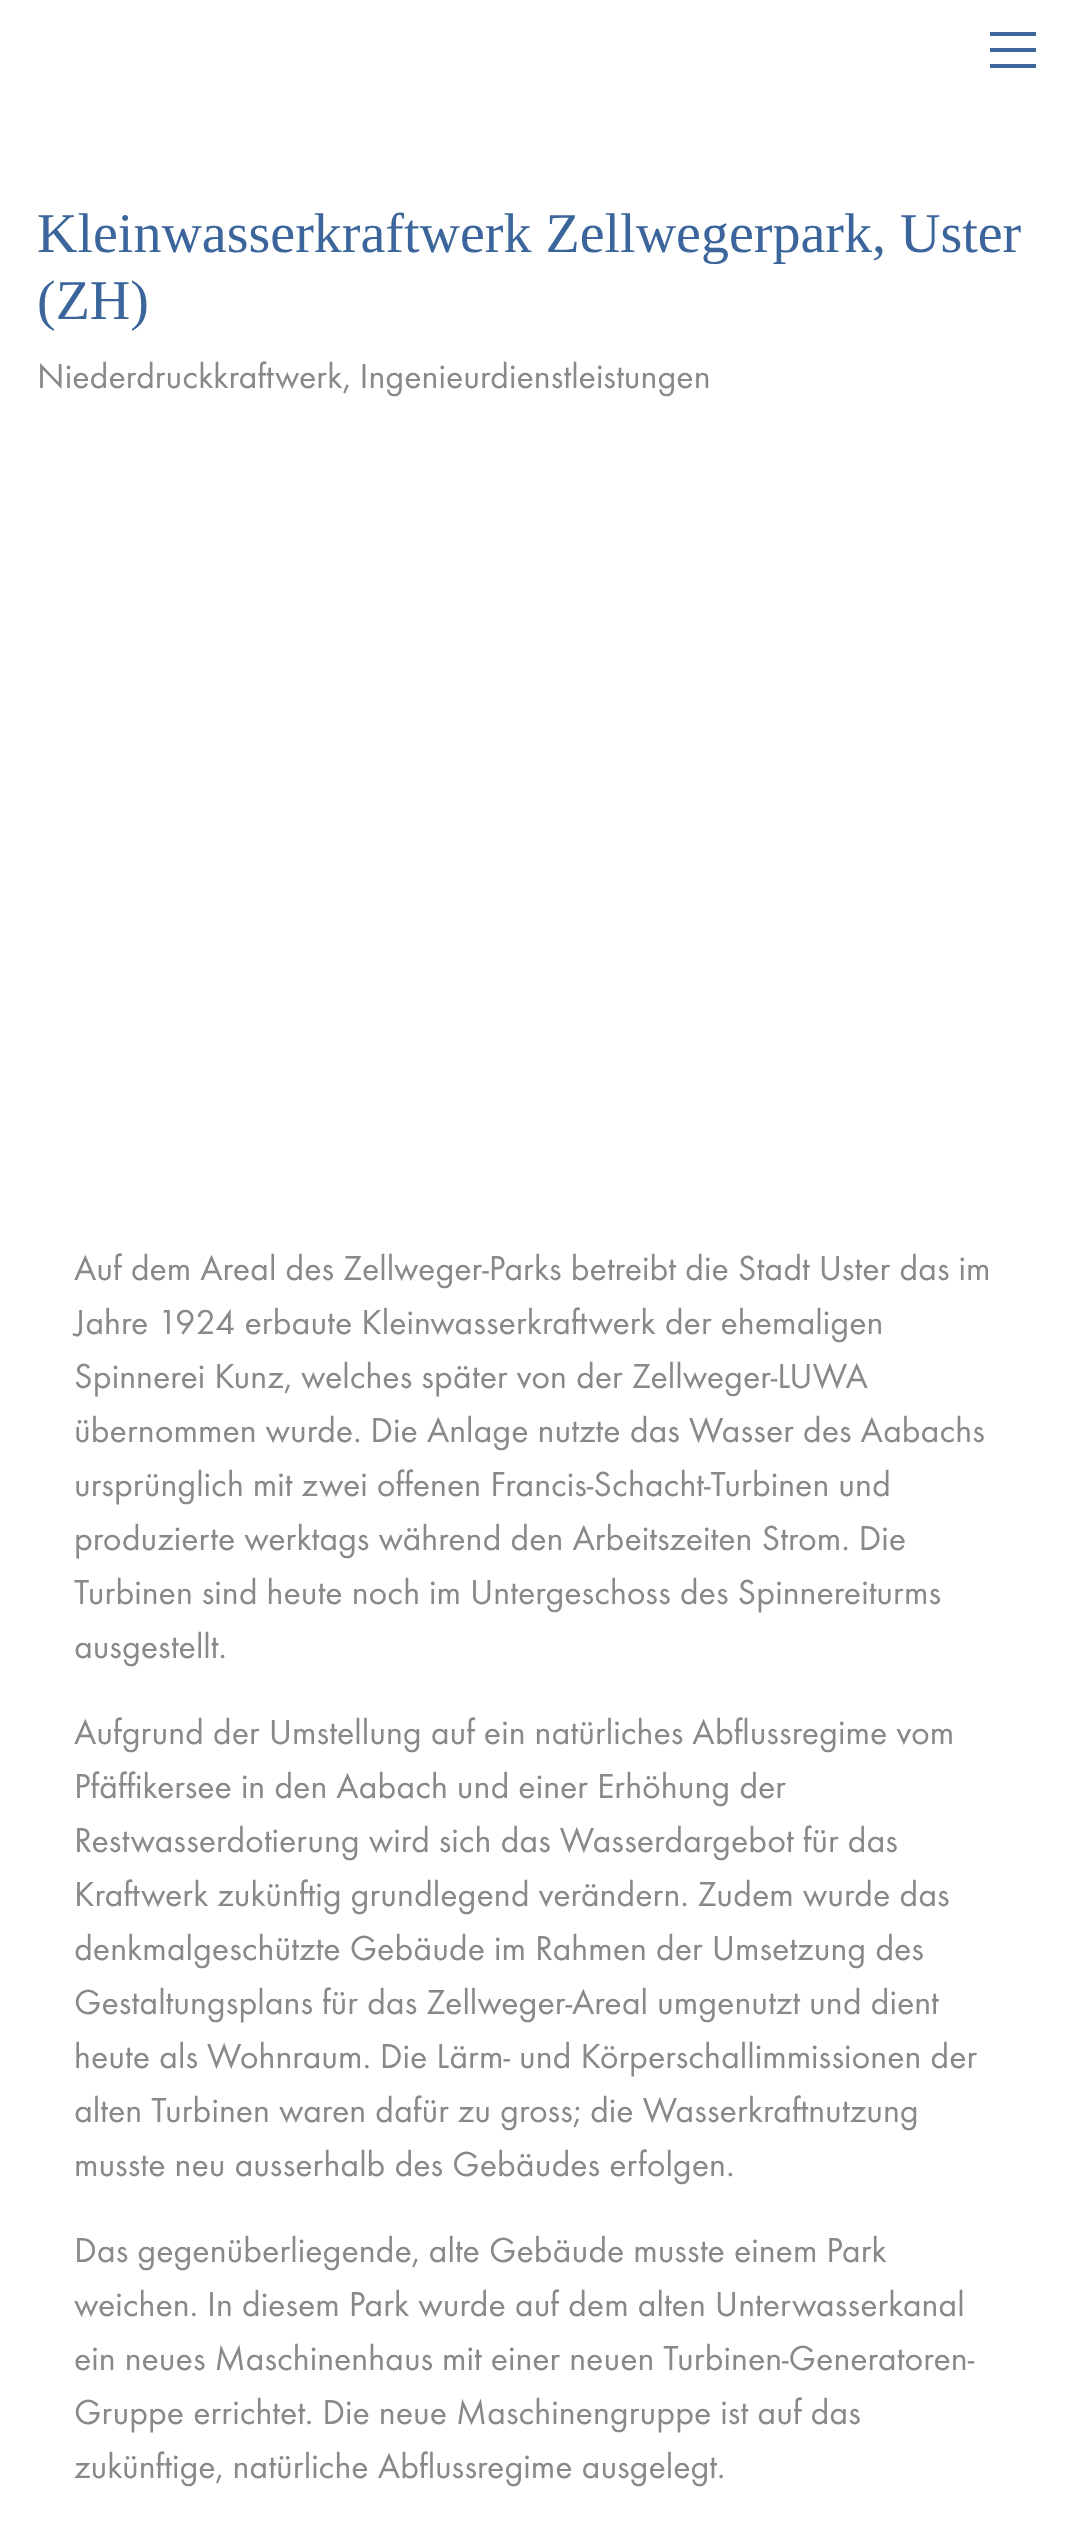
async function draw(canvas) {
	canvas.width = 1085;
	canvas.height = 2541;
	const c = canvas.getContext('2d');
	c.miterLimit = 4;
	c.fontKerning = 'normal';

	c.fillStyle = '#fff';
	c.fillRect(0, 0, 1085, 2541);
	for (const [x, y, w, h, color] of [
		[990, 32, 46, 4, '#3c669b'],
		[990, 48, 46, 4, '#3c669b'],
		[990, 64, 46, 4, '#3c669b'],
	]) {
		c.fillStyle = color;
		c.fillRect(x, y, w, h);
	}
	c.font = '56px Liberation Serif';
	c.fillText('Kleinwasserkraftwerk Zellwegerpark, Uster', 37, 252);
	c.fillText('(ZH)', 37, 319);
	c.font = '36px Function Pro';
	c.fillStyle = '#898989';
	for (const [text, x, y] of [
		['Niederdruckkraftwerk, Ingenieurdienstleistungen', 37, 388],
		['Auf dem Areal des Zellweger-Parks betreibt die Stadt Uster das im', 74, 1280],
		['Jahre 1924 erbaute Kleinwasserkraftwerk der ehemaligen', 74, 1334],
		['Spinnerei Kunz, welches später von der Zellweger-LUWA', 74, 1388],
		['übernommen wurde. Die Anlage nutzte das Wasser des Aabachs', 74, 1442],
		['ursprünglich mit zwei offenen Francis-Schacht-Turbinen und', 74, 1496],
		['produzierte werktags während den Arbeitszeiten Strom. Die', 74, 1550],
		['Turbinen sind heute noch im Untergeschoss des Spinnereiturms', 74, 1604],
		['ausgestellt.', 74, 1658],
		['Aufgrund der Umstellung auf ein natürliches Abflussregime vom', 74, 1744],
		['Pfäffikersee in den Aabach und einer Erhöhung der', 74, 1798],
		['Restwasserdotierung wird sich das Wasserdargebot für das', 74, 1852],
		['Kraftwerk zukünftig grundlegend verändern. Zudem wurde das', 74, 1906],
		['denkmalgeschützte Gebäude im Rahmen der Umsetzung des', 74, 1960],
		['Gestaltungsplans für das Zellweger-Areal umgenutzt und dient', 74, 2014],
		['heute als Wohnraum. Die Lärm- und Körperschallimmissionen der', 74, 2068],
		['alten Turbinen waren dafür zu gross; die Wasserkraftnutzung', 74, 2122],
		['musste neu ausserhalb des Gebäudes erfolgen.', 74, 2176],
		['Das gegenüberliegende, alte Gebäude musste einem Park', 74, 2262],
		['weichen. In diesem Park wurde auf dem alten Unterwasserkanal', 74, 2316],
		['ein neues Maschinenhaus mit einer neuen Turbinen-Generatoren-', 74, 2370],
		['Gruppe errichtet. Die neue Maschinengruppe ist auf das', 74, 2424],
		['zukünftige, natürliche Abflussregime ausgelegt.', 74, 2478],
	]) {
		c.fillText(text, x, y);
	}
}

draw(document.querySelector('canvas'));
